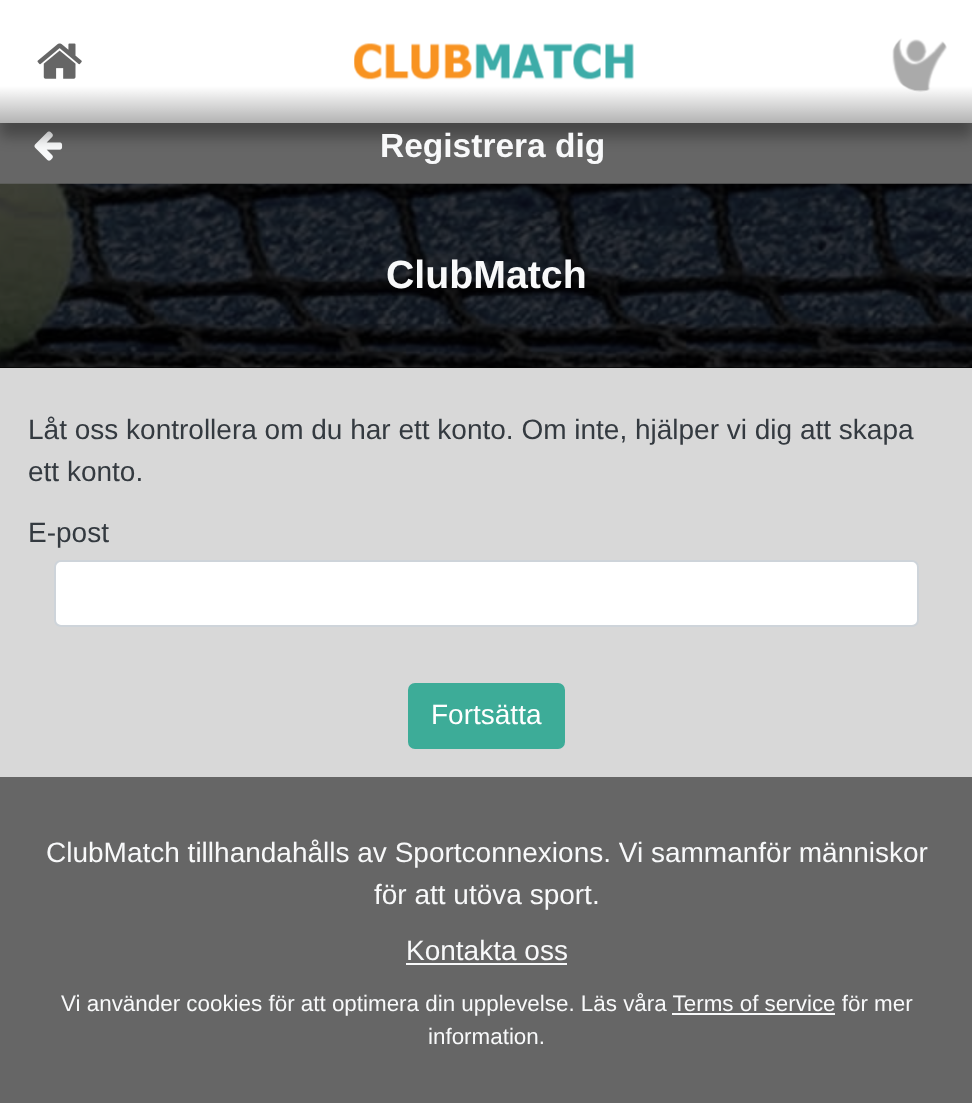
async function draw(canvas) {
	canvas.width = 972;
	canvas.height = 1103;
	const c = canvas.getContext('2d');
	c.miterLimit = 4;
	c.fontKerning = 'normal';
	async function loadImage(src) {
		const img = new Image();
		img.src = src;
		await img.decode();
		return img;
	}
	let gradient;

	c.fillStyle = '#666';
	c.fillRect(0, 0, 972, 1103);
	c.drawImage(await loadImage('img4.png'), 34, 131, 29, 30);
	c.save();
	c.beginPath();
	c.moveTo(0, 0);
	c.lineTo(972, 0);
	c.lineTo(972, 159);
	c.lineTo(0, 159);
	c.closePath();
	c.moveTo(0, 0);
	c.lineTo(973, 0);
	c.lineTo(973, 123);
	c.lineTo(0, 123);
	c.closePath();
	c.clip('evenodd');
	c.fillStyle = '#0000004d';
	c.filter = 'blur(7px)';
	c.beginPath();
	c.rect(0, 14, 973, 123);
	c.fill();
	c.filter = 'none';
	c.restore();
	gradient = c.createLinearGradient(487, 0, 487, 123);
	gradient.addColorStop(0, '#fff');
	gradient.addColorStop(0.7, '#fff');
	gradient.addColorStop(1, '#ffffff80');
	c.fillStyle = gradient;
	c.fillRect(0, 0, 972, 123);
	c.drawImage(await loadImage('img1.png'), 37, 43, 45, 36);
	c.drawImage(await loadImage('img2.png'), 354, 43, 280, 37);
	c.drawImage(await loadImage('img3.png'), 892, 38, 55, 54);
	c.font = 'bold 33.5px Liberation Sans';
	c.fillStyle = '#f8f9fa';
	c.fillText('Registrera dig', 380, 157);
	c.fillStyle = '#d8d8d8';
	c.fillRect(0, 368, 972, 409);
	c.fillStyle = '#000';
	c.fillRect(0, 367, 972, 1);
	c.drawImage(await loadImage('img5.png'), 0, 183, 972, 185);
	c.font = 'bold 39.25px Liberation Sans';
	c.fillStyle = '#f8f9fa';
	c.fillText('ClubMatch', 386, 288);
	c.font = '28px Liberation Sans';
	c.fillStyle = '#343a40';
	for (const [text, x, y] of [
		['Låt oss kontrollera om du har ett konto. Om inte, hjälper vi dig att skapa', 28, 439],
		['ett konto.', 28, 481],
		['E-post', 28, 542],
	]) {
		c.fillText(text, x, y);
	}
	c.fillStyle = '#fff';
	c.beginPath();
	c.roundRect(55, 561, 863, 65, 6);
	c.fill();
	c.strokeStyle = '#ced4da';
	c.lineWidth = 2;
	c.stroke();
	c.fillStyle = '#3dac98';
	c.beginPath();
	c.roundRect(409, 684, 155, 64, 6);
	c.fill();
	c.strokeStyle = '#3dac98';
	c.stroke();
	c.fillStyle = '#fff';
	c.fillText('Fortsätta', 431, 724);
	c.fillStyle = '#f8f9fa';
	for (const [text, x, y] of [
		['ClubMatch tillhandahålls av Sportconnexions. Vi sammanför människor', 46, 862],
		['för att utöva sport.', 374, 904],
		['Kontakta oss', 406, 960],
	]) {
		c.fillText(text, x, y);
	}
	c.fillRect(406, 963, 161, 2);
	c.font = '22.4px Liberation Sans';
	c.fillText('Vi använder cookies för att optimera din upplevelse. Läs våra Terms of service för mer', 61, 1011);
	c.fillRect(672, 1013, 163, 2);
	c.fillText('information.', 428, 1044);
}

draw(document.querySelector('canvas'));
